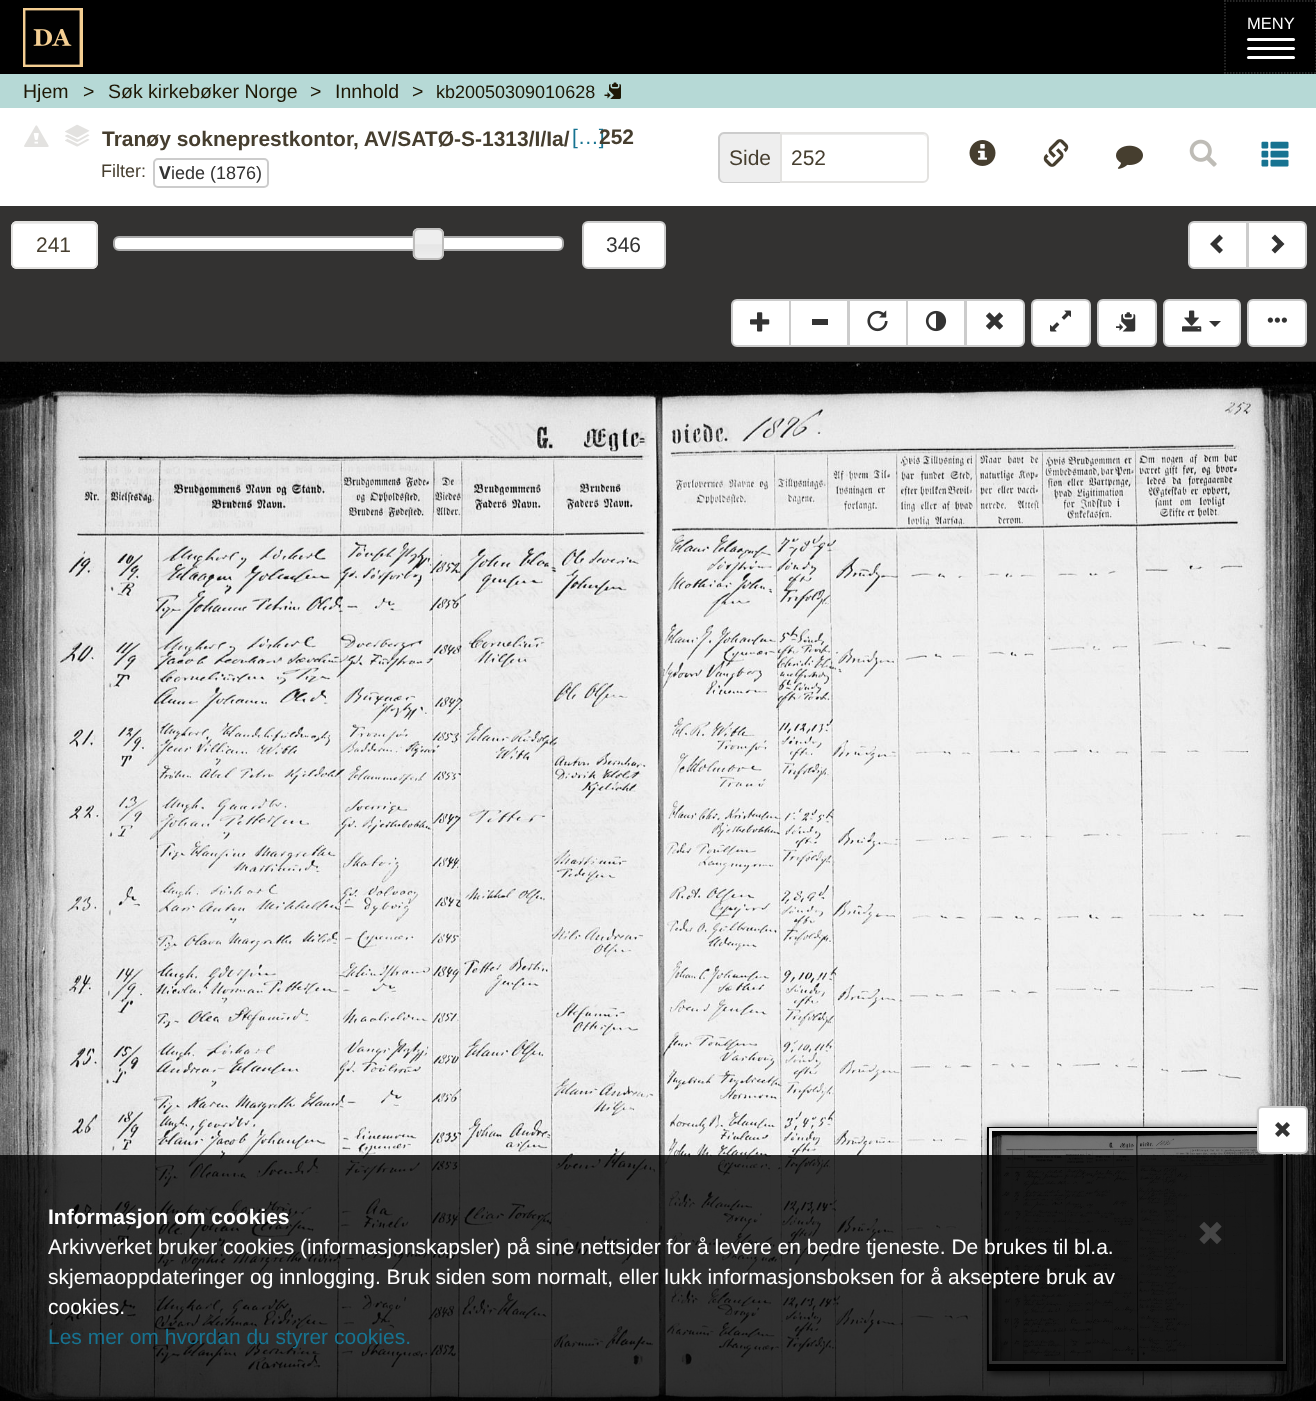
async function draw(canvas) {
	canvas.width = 1316;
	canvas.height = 1401;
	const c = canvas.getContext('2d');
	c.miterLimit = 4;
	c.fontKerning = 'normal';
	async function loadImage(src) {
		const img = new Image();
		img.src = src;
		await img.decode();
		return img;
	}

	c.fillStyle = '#b6d9d6';
	c.fillRect(0, 0, 1316, 1401);
	c.fillStyle = '#000';
	c.fillRect(0, 0, 1316, 74);
	c.drawImage(await loadImage('img1.png'), 23, 8, 60, 59);
	c.beginPath();
	c.moveTo(1224, 1);
	c.lineTo(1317, 1);
	c.strokeStyle = '#333';
	c.lineWidth = 1.5;
	c.setLineDash([1.5, 1.5]);
	c.stroke();
	c.beginPath();
	c.moveTo(1316, 0);
	c.lineTo(1316, 73.5);
	c.stroke();
	c.beginPath();
	c.moveTo(1224, 73);
	c.lineTo(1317, 73);
	c.stroke();
	c.beginPath();
	c.moveTo(1225, 0);
	c.lineTo(1225, 73.5);
	c.stroke();
	c.font = '16.5px Liberation Sans';
	c.fillStyle = '#fff';
	c.fillText('MENY', 1247, 29);
	c.beginPath();
	c.roundRect(1247, 38, 48, 3, 1.5);
	c.fill();
	c.beginPath();
	c.roundRect(1247, 47, 48, 3, 1.5);
	c.fill();
	c.beginPath();
	c.roundRect(1247, 56, 48, 3, 1.5);
	c.fill();
	c.font = '19.5px Liberation Sans';
	c.fillStyle = '#1d1705';
	for (const [text, x, y] of [
		['Hjem', 23, 98],
		['>', 83, 98],
		['Søk kirkebøker Norge', 108, 98],
		['>', 310, 98],
		['Innhold', 335, 98],
		['>', 412, 98],
	]) {
		c.fillText(text, x, y);
	}
	c.font = '18px Liberation Sans';
	c.fillText('kb20050309010628', 436, 98);
	c.drawImage(await loadImage('img2.png'), 604, 82, 17, 17);
	c.fillStyle = '#fff';
	c.fillRect(0, 108, 1316, 98);
	c.drawImage(await loadImage('img3.png'), 24, 125, 25, 22);
	c.drawImage(await loadImage('img8.png'), 65, 138, 25, 9);
	c.drawImage(await loadImage('img7.png'), 68, 136, 20, 8);
	c.drawImage(await loadImage('img6.png'), 65, 134, 25, 8);
	c.drawImage(await loadImage('img5.png'), 67, 131, 21, 9);
	c.drawImage(await loadImage('img4.png'), 65, 124, 25, 14);
	c.fillRect(600, 129, 5, 15);
	c.font = '21px Liberation Sans';
	c.fillStyle = '#177391';
	c.fillText('[…]', 572, 144);
	c.font = 'bold 21px Liberation Sans';
	c.fillStyle = '#463e2f';
	c.fillText('Tranøy sokneprestkontor, AV/SATØ-S-1313/I/Ia/', 102, 146);
	c.fillText('252', 599, 144);
	c.font = '18px Liberation Sans';
	c.fillText('Filter:', 101, 177);
	c.beginPath();
	c.roundRect(154, 159, 114, 28, 4);
	c.strokeStyle = '#ccc';
	c.lineWidth = 2;
	c.setLineDash([]);
	c.stroke();
	c.font = 'bold 18px Noto Sans';
	c.fillStyle = '#333';
	c.fillText('V', 159, 179);
	c.font = '18px Liberation Sans';
	c.fillText('iede (1876)', 171, 179);
	c.fillStyle = '#eee';
	c.beginPath();
	c.roundRect(719, 132, 61, 51, [6, 0, 0, 6]);
	c.fill();
	c.fillStyle = '#ccc';
	c.beginPath();
	c.moveTo(724, 132);
	c.lineTo(780, 132);
	c.lineTo(780, 183);
	c.lineTo(724, 183);
	c.bezierCurveTo(721, 183, 718, 180, 718, 177);
	c.lineTo(718, 138);
	c.bezierCurveTo(718, 135, 721, 132, 724, 132);
	c.closePath();
	c.moveTo(724, 134);
	c.lineTo(780, 134);
	c.lineTo(780, 182);
	c.lineTo(724, 182);
	c.bezierCurveTo(722, 182, 720, 179, 720, 177);
	c.lineTo(720, 138);
	c.bezierCurveTo(720, 136, 722, 134, 724, 134);
	c.closePath();
	c.fill('evenodd');
	c.font = '21px Liberation Sans';
	c.fillStyle = '#463e2f';
	c.fillText('Side', 729, 165);
	c.fillStyle = '#ececec';
	c.beginPath();
	c.moveTo(782, 135);
	c.lineTo(922, 135);
	c.bezierCurveTo(925, 135, 927, 137, 927, 140);
	c.lineTo(927, 139);
	c.bezierCurveTo(927, 136, 925, 134, 922, 134);
	c.lineTo(782, 134);
	c.closePath();
	c.fill();
	c.beginPath();
	c.roundRect(781, 133, 147, 49, [0, 5, 5, 0]);
	c.strokeStyle = '#e3e2e0';
	c.stroke();
	c.fillStyle = '#463e2f';
	c.fillText('252', 791, 165);
	c.drawImage(await loadImage('img9.png'), 969, 140, 27, 26);
	c.drawImage(await loadImage('img10.png'), 1043, 139, 26, 28);
	c.drawImage(await loadImage('img11.png'), 1116, 145, 27, 24);
	c.drawImage(await loadImage('img12.png'), 1189, 139, 28, 28);
	c.drawImage(await loadImage('img13.png'), 1261, 141, 28, 26);
	c.fillStyle = '#333231';
	c.fillRect(0, 206, 1316, 156);
	c.fillStyle = '#fff';
	c.beginPath();
	c.roundRect(11, 221, 87, 48, 6);
	c.fill();
	c.fillStyle = '#ececec';
	c.beginPath();
	c.moveTo(16, 224);
	c.lineTo(92, 224);
	c.bezierCurveTo(94, 224, 96, 226, 96, 228);
	c.bezierCurveTo(96, 219, 84, 222, 79, 222);
	c.lineTo(29, 222);
	c.bezierCurveTo(24, 222, 12, 219, 12, 228);
	c.bezierCurveTo(12, 226, 14, 224, 16, 224);
	c.closePath();
	c.fill();
	c.beginPath();
	c.roundRect(12, 222, 85, 46, 5);
	c.stroke();
	c.fillStyle = '#463e2f';
	c.fillText('241', 36, 252);
	c.fillStyle = '#fff';
	c.beginPath();
	c.roundRect(114, 237, 449, 13, 5);
	c.fill();
	c.strokeStyle = '#aaa';
	c.stroke();
	c.drawImage(await loadImage('img14.png'), 412, 228, 32, 32);
	c.beginPath();
	c.roundRect(414, 229, 29, 30, 5);
	c.strokeStyle = '#bfbebd';
	c.stroke();
	c.beginPath();
	c.roundRect(583, 222, 82, 46, 5);
	c.fill();
	c.strokeStyle = '#ccc';
	c.stroke();
	c.fillStyle = '#333';
	c.fillText('346', 606, 252);
	c.fillStyle = '#fff';
	c.beginPath();
	c.roundRect(1189, 222, 58, 46, [5, 0, 0, 5]);
	c.fill();
	c.stroke();
	c.fillStyle = '#333';
	c.beginPath();
	c.moveTo(1223, 238);
	c.lineTo(1217, 244);
	c.lineTo(1223, 250);
	c.lineTo(1219.5, 253.5);
	c.lineTo(1210, 244);
	c.lineTo(1219.5, 234.5);
	c.closePath();
	c.fill();
	c.fillStyle = '#fff';
	c.beginPath();
	c.roundRect(1248, 222, 58, 46, [0, 5, 5, 0]);
	c.fill();
	c.stroke();
	c.fillStyle = '#333';
	c.beginPath();
	c.moveTo(1284.5, 244);
	c.lineTo(1275, 253.5);
	c.lineTo(1271.5, 250);
	c.lineTo(1277.5, 244);
	c.lineTo(1271.5, 238);
	c.lineTo(1275, 234.5);
	c.closePath();
	c.fill();
	c.fillStyle = '#fff';
	c.beginPath();
	c.roundRect(732, 300, 58, 46, [5, 0, 0, 5]);
	c.fill();
	c.stroke();
	c.drawImage(await loadImage('img15.png'), 750, 312, 20, 20);
	c.beginPath();
	c.rect(790, 300, 58, 46);
	c.fill();
	c.stroke();
	c.fillStyle = '#333';
	c.fillRect(812, 319, 16, 6);
	c.fillStyle = '#fff';
	c.beginPath();
	c.rect(849, 300, 58, 46);
	c.fill();
	c.stroke();
	c.drawImage(await loadImage('img16.png'), 867, 310, 21, 22);
	c.beginPath();
	c.rect(907, 300, 58, 46);
	c.fill();
	c.stroke();
	c.drawImage(await loadImage('img17.png'), 925, 310, 22, 22);
	c.beginPath();
	c.roundRect(966, 300, 58, 46, [0, 5, 5, 0]);
	c.fill();
	c.stroke();
	c.drawImage(await loadImage('img18.png'), 986, 312, 17, 18);
	c.beginPath();
	c.roundRect(1032, 300, 58, 46, 5);
	c.fill();
	c.stroke();
	c.drawImage(await loadImage('img19.png'), 1050, 310, 21, 22);
	c.beginPath();
	c.roundRect(1098, 300, 58, 46, 5);
	c.fill();
	c.stroke();
	c.drawImage(await loadImage('img20.png'), 1116, 312, 20, 20);
	c.beginPath();
	c.roundRect(1164, 300, 76, 46, 5);
	c.fill();
	c.stroke();
	c.drawImage(await loadImage('img21.png'), 1182, 310, 20, 22);
	c.fillStyle = '#333';
	c.beginPath();
	c.moveTo(1209, 321);
	c.lineTo(1221, 321);
	c.lineTo(1215, 327);
	c.closePath();
	c.fill();
	c.fillStyle = '#fff';
	c.beginPath();
	c.roundRect(1248, 300, 58, 46, 5);
	c.fill();
	c.stroke();
	c.drawImage(await loadImage('img22.png'), 1267, 317, 20, 6);
	c.drawImage(await loadImage('img23.png'), 0, 361, 1316, 1040);
	c.fillStyle = '#323232';
	c.filter = 'blur(4px)';
	c.beginPath();
	c.rect(989, 1128, 300, 245);
	c.fill();
	c.filter = 'none';
	c.strokeStyle = '#000';
	c.strokeRect(988, 1128, 298, 242);
	c.drawImage(await loadImage('img25.png'), 988, 1128, 298, 242);
	c.fillStyle = '#00000080';
	c.fillRect(989, 1128, 297, 236);
	c.strokeStyle = '#ffffffe6';
	c.lineWidth = 3;
	c.strokeRect(990.5, 1129.5, 294, 233);
	c.fillStyle = '#0000001a';
	c.filter = 'blur(1px)';
	c.beginPath();
	c.roundRect(1257, 1107, 51, 48, 5);
	c.fill();
	c.filter = 'none';
	c.fillStyle = '#fff';
	c.beginPath();
	c.roundRect(1258, 1107, 49, 46, 4);
	c.fill();
	c.strokeStyle = '#ccc';
	c.lineWidth = 2;
	c.stroke();
	c.drawImage(await loadImage('img24.png'), 1275, 1122, 15, 15);
	c.fillStyle = '#000000cc';
	c.fillRect(0, 1155, 1316, 246);
	c.font = 'bold 21px Liberation Sans';
	c.fillStyle = '#fff';
	c.fillText('Informasjon om cookies', 48, 1224);
	c.drawImage(await loadImage('img26.png'), 1199, 1222, 23, 22);
	c.font = '21px Liberation Sans';
	for (const [text, x, y] of [
		['Arkivverket bruker cookies (informasjonskapsler) på sine nettsider for å levere en bedre tjeneste. De brukes til bl.a.', 48, 1254],
		['skjemaoppdateringer og innlogging. Bruk siden som normalt, eller lukk informasjonsboksen for å akseptere bruk av', 48, 1284],
		['cookies.', 48, 1314],
	]) {
		c.fillText(text, x, y);
	}
	c.fillStyle = '#177391';
	c.fillText('Les mer om hvordan du styrer cookies.', 48, 1344);
}

draw(document.querySelector('canvas'));
